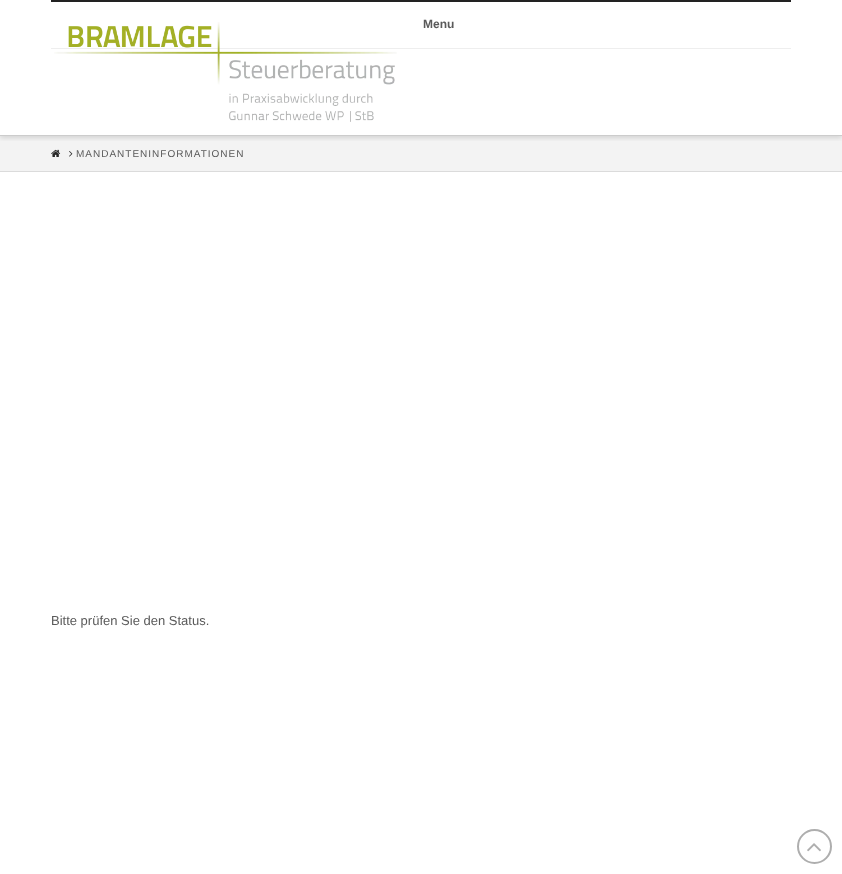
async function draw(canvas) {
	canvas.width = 842;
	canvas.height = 874;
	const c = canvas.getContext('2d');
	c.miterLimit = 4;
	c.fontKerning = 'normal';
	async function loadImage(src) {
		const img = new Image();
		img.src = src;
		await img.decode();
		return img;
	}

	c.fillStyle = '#fff';
	c.fillRect(0, 0, 842, 874);
	c.fillStyle = '#f3f3f3';
	c.fillRect(0, 136, 842, 35);
	c.save();
	c.beginPath();
	c.rect(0, 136, 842, 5);
	c.clip();
	c.fillStyle = '#00000021';
	c.filter = 'blur(2.5px)';
	c.beginPath();
	c.rect(0, 2, 842, 136);
	c.fill();
	c.filter = 'none';
	c.restore();
	c.fillStyle = '#ccc';
	c.fillRect(0, 135, 842, 1);
	c.fillStyle = '#eee';
	c.fillRect(51, 48, 740, 1);
	c.drawImage(await loadImage('img1.png'), 54, 22, 343, 100);
	c.fillStyle = '#222';
	c.fillRect(51, 0, 740, 2);
	c.font = 'bold 12px Liberation Sans';
	c.fillStyle = '#5a5a5a';
	c.fillText('Menu', 423, 28);
	c.fillStyle = '#dbdbdb';
	c.fillRect(0, 171, 842, 1);
	c.drawImage(await loadImage('img2.png'), 51, 149, 10, 8);
	c.drawImage(await loadImage('img3.png'), 69, 151, 4, 6);
	c.letterSpacing = '1px';
	c.font = '10px Liberation Sans';
	c.fillStyle = '#5a5a5a';
	c.fillText('MANDANTENINFORMATIONEN', 76, 157);
	c.letterSpacing = '0px';
	c.font = '13px Liberation Sans';
	c.fillText('Bitte prüfen Sie den Status.', 51, 625);
	c.beginPath();
	c.arc(814.5, 846.5, 16.5, 0, 2 * Math.PI);
	c.strokeStyle = '#aeaeae';
	c.lineWidth = 2;
	c.stroke();
	c.drawImage(await loadImage('img4.png'), 807, 843, 14, 9);
}

draw(document.querySelector('canvas'));
